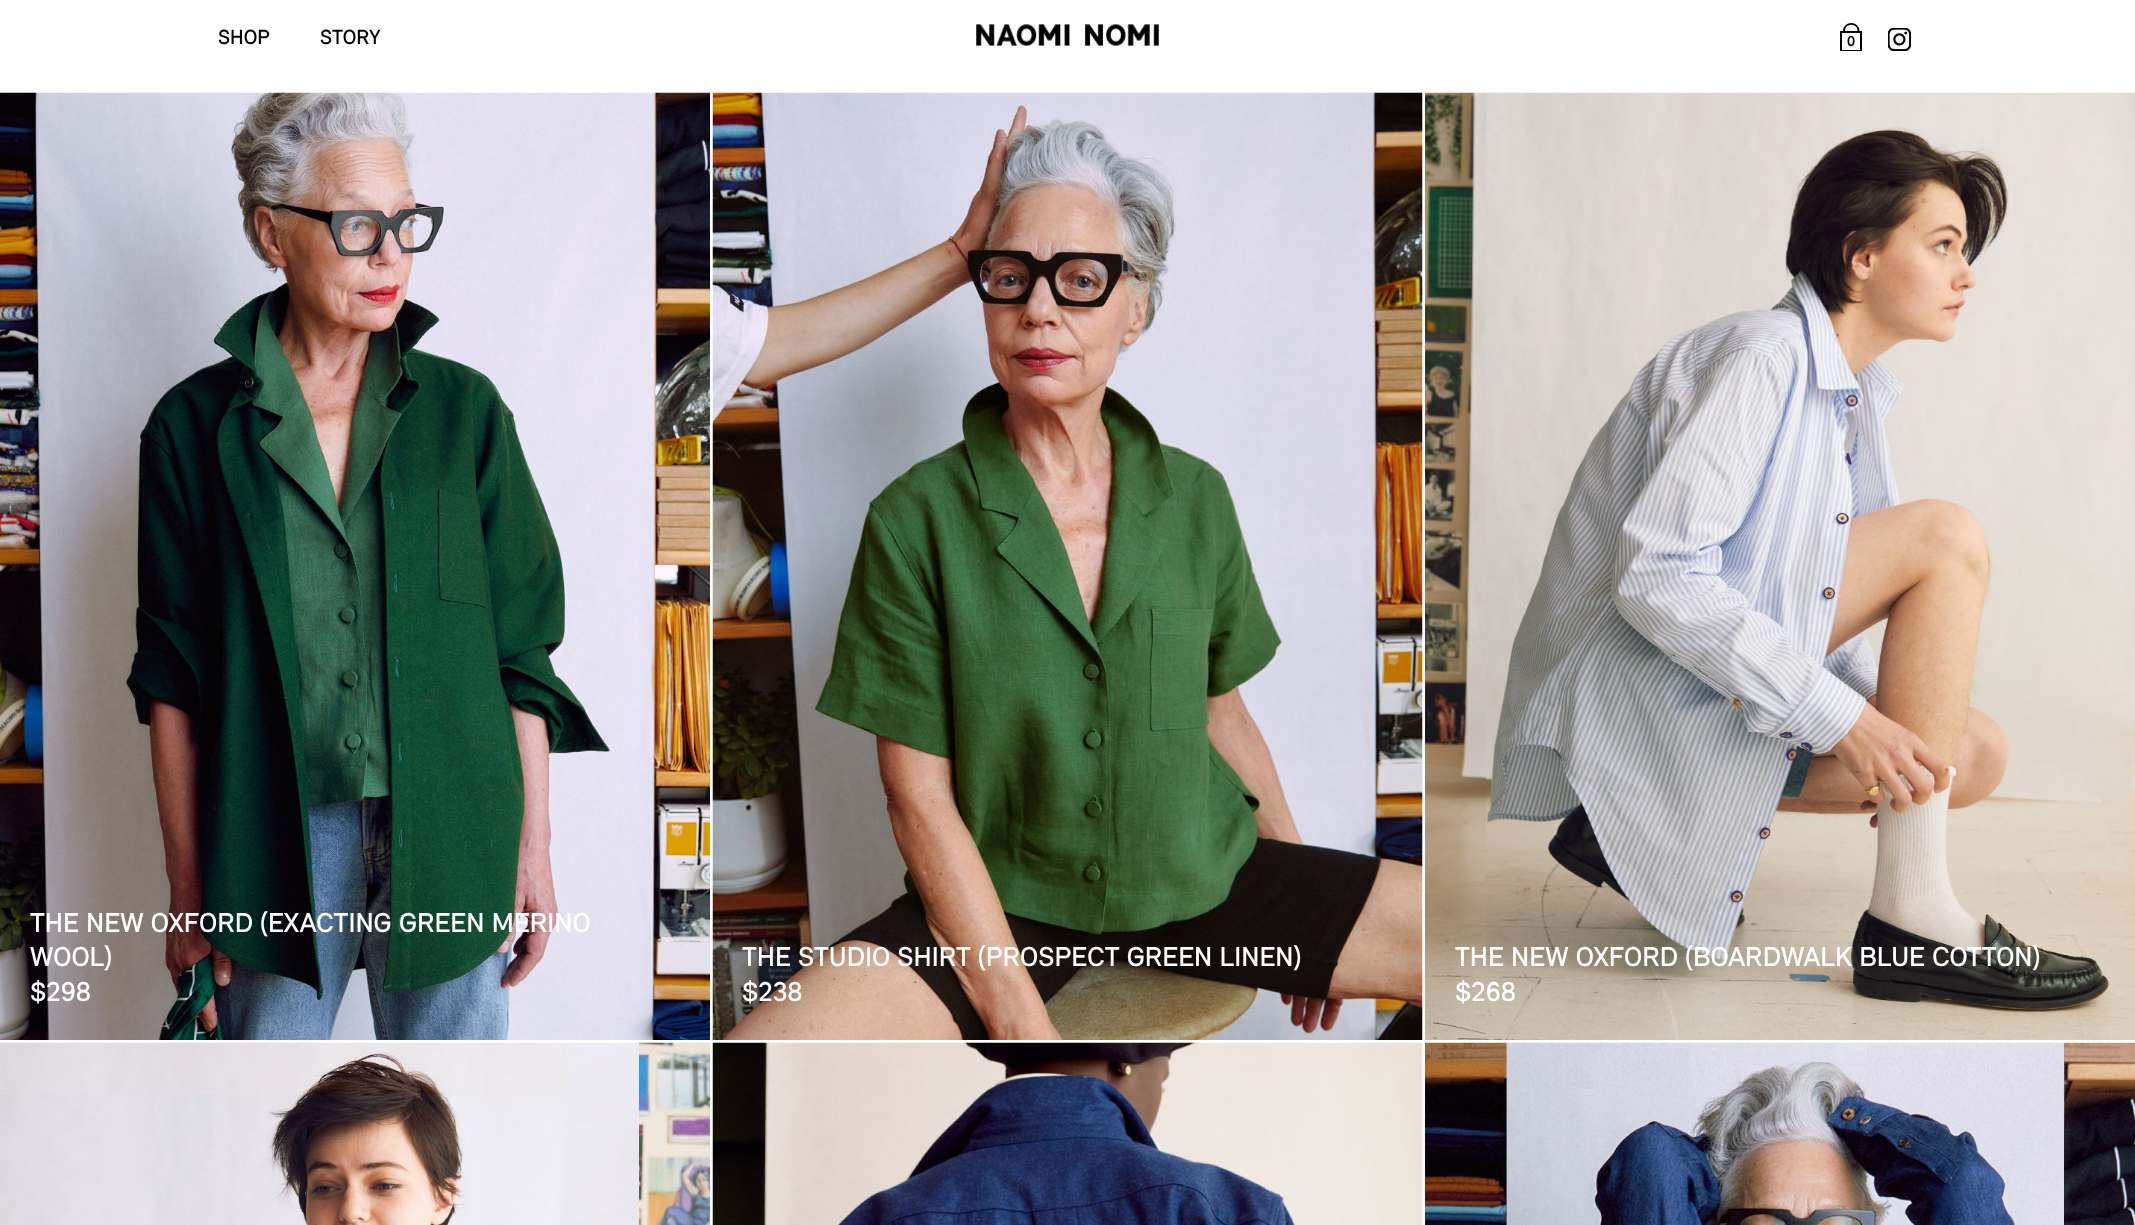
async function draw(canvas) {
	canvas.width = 2135;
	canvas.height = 1225;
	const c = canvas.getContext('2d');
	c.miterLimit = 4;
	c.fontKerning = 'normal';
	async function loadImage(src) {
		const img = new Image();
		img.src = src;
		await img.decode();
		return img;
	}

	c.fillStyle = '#fff';
	c.fillRect(0, 0, 2135, 1225);
	c.font = '500 21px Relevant';
	c.fillStyle = '#000';
	c.fillText('SHOP', 218, 44);
	c.fillText('STORY', 320, 44);
	c.drawImage(await loadImage('img1.png'), 976, 24, 183, 22);
	c.save();
	c.beginPath();
	c.rect(1840, 23, 23, 28);
	c.clip();
	c.strokeStyle = '#000';
	c.lineWidth = 2;
	c.strokeRect(1841, 32, 20, 19);
	c.restore();
	c.beginPath();
	c.moveTo(1858.5, 31);
	c.bezierCurveTo(1858.5, 21.5, 1844, 21.5, 1844, 31);
	c.strokeStyle = '#000';
	c.lineWidth = 1.8;
	c.stroke();
	c.font = 'bold 15px Relevant';
	c.fillText('0', 1847, 46);
	c.drawImage(await loadImage('img2.png'), 1888, 28, 23, 23);
	c.drawImage(await loadImage('img3.png'), 0, 92, 710, 948);
	c.font = '500 28.1px Relevant';
	c.fillStyle = '#fff';
	for (const [text, x, y] of [
		['THE NEW OXFORD (EXACTING GREEN MERINO', 30, 932],
		['WOOL)', 30, 966],
		['$298', 30, 1001],
	]) {
		c.fillText(text, x, y);
	}
	c.drawImage(await loadImage('img4.png'), 712, 92, 711, 948);
	c.fillText('THE STUDIO SHIRT (PROSPECT GREEN LINEN)', 742, 966);
	c.fillText('$238', 742, 1001);
	c.drawImage(await loadImage('img5.png'), 1425, 92, 710, 948);
	c.fillText('THE NEW OXFORD (BOARDWALK BLUE COTTON)', 1455, 966);
	c.fillText('$268', 1455, 1001);
	c.drawImage(await loadImage('img6.png'), 0, 1042, 710, 183);
	c.drawImage(await loadImage('img7.png'), 712, 1042, 711, 183);
	c.drawImage(await loadImage('img8.png'), 1425, 1042, 710, 183);
}

draw(document.querySelector('canvas'));
